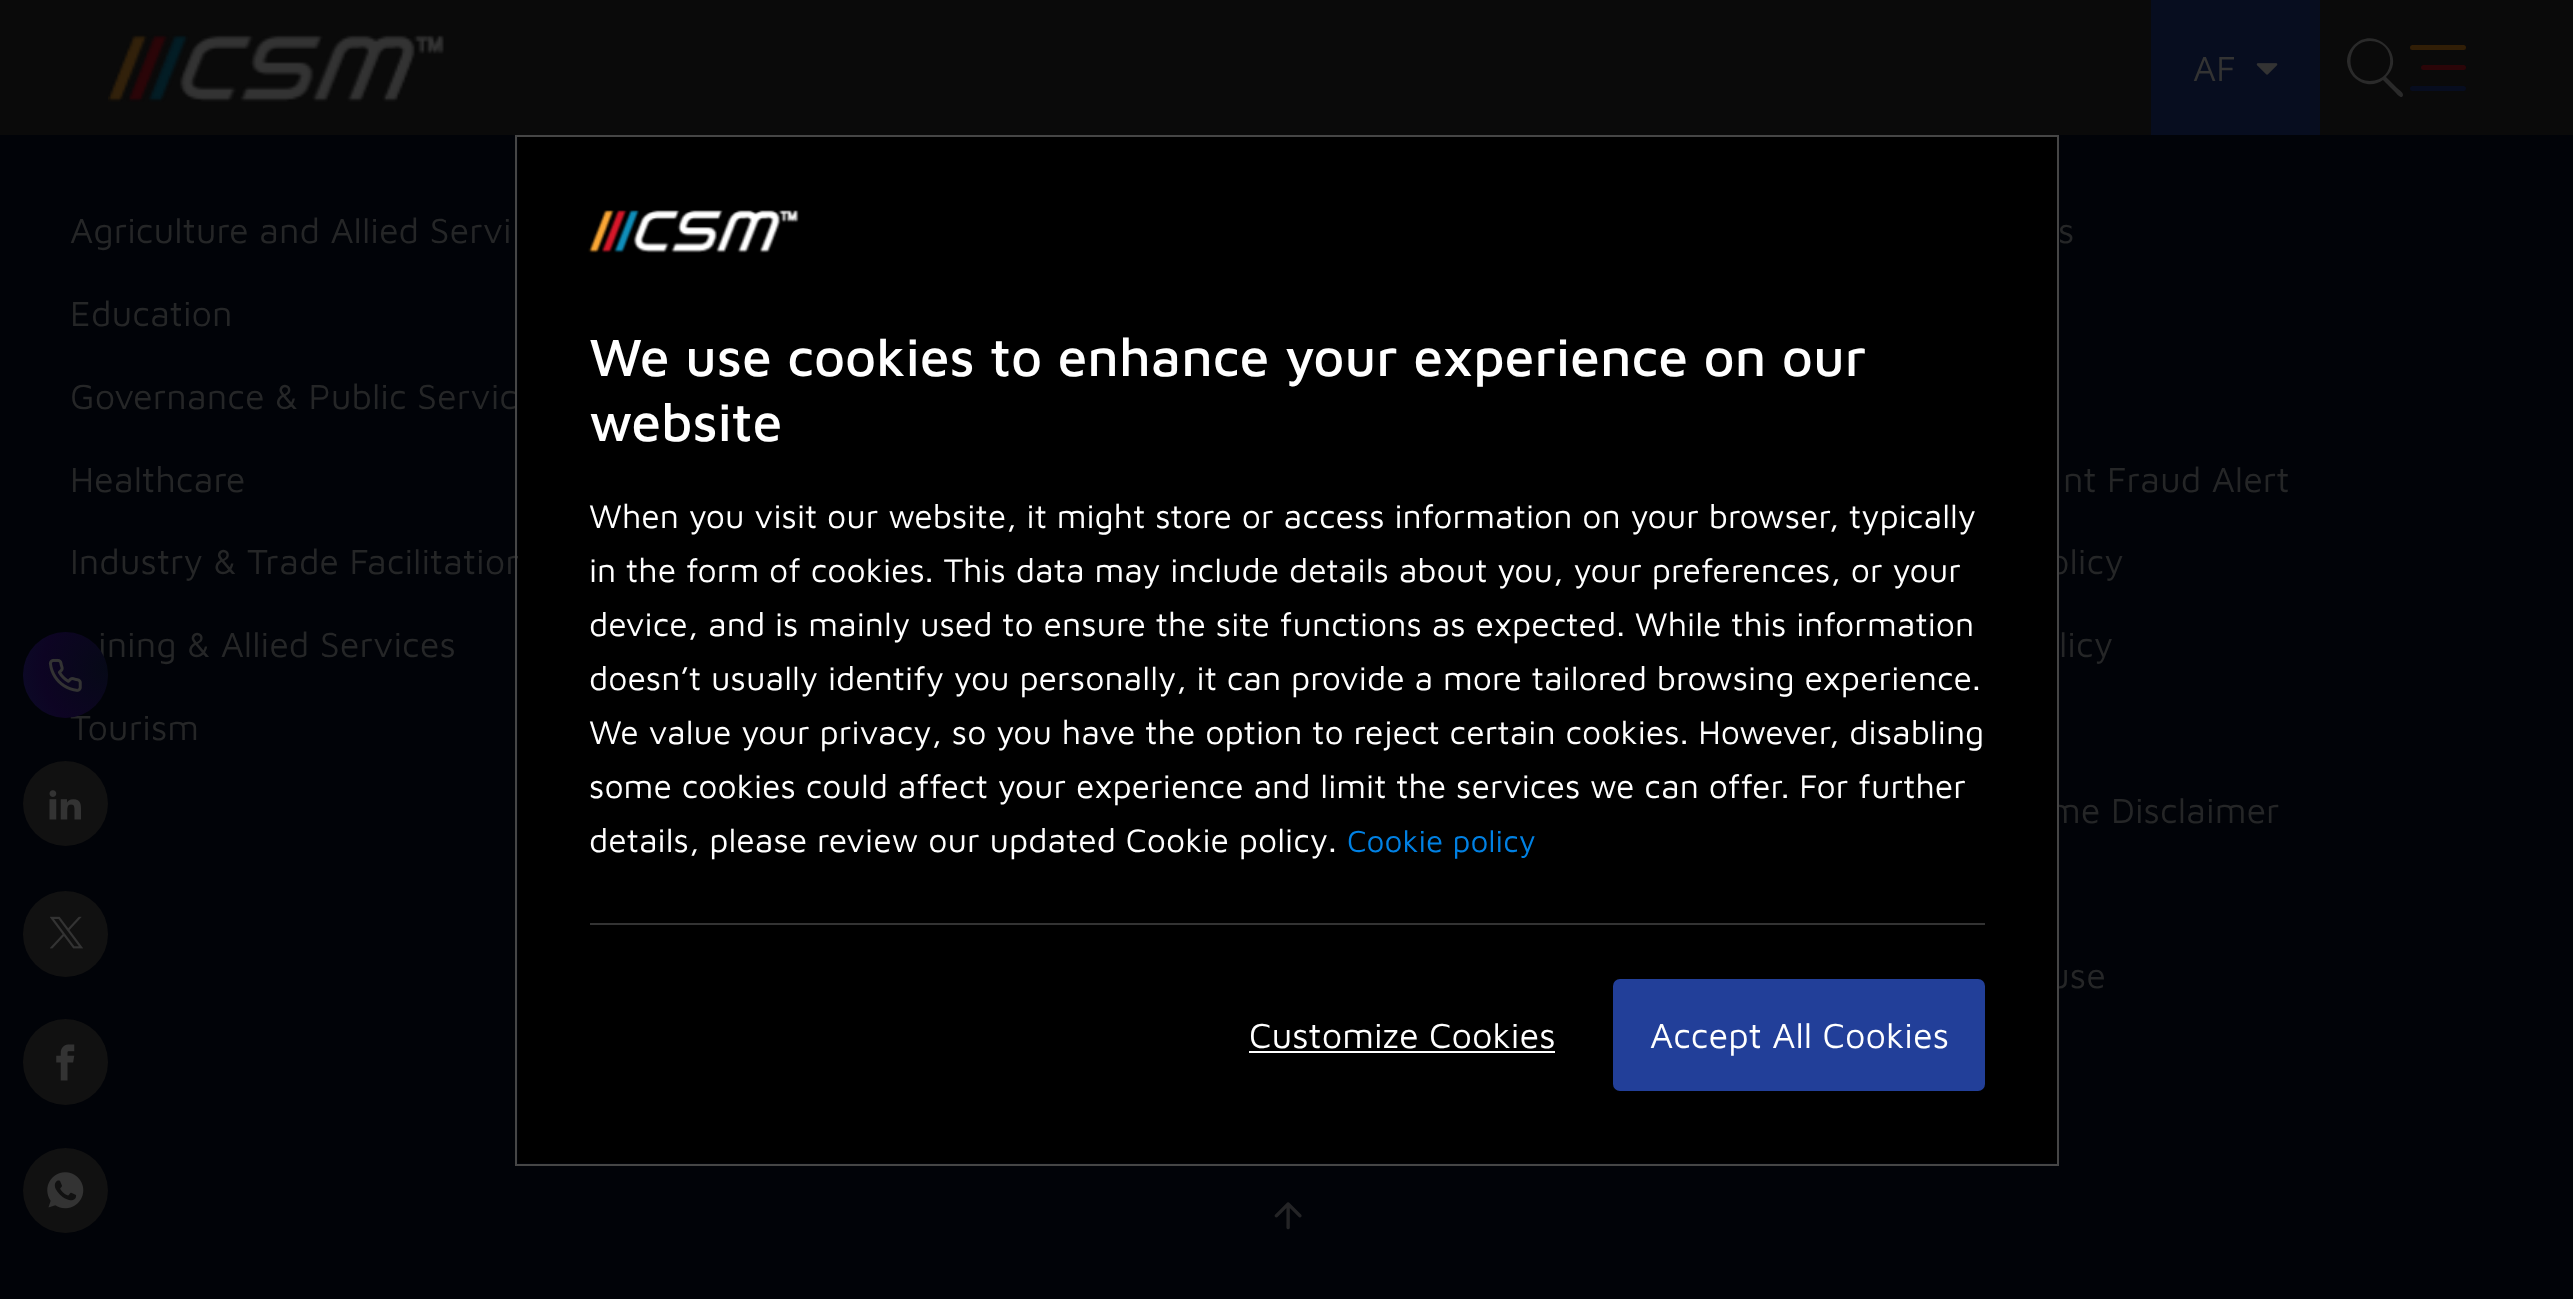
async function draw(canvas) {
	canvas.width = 2573;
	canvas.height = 1299;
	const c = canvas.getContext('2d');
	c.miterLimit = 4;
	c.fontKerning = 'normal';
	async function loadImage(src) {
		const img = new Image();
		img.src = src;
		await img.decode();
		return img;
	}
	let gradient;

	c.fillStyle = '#010308';
	c.fillRect(0, 0, 2573, 1299);
	c.fillStyle = '#0a0a0a';
	c.fillRect(0, 0, 2573, 135);
	c.drawImage(await loadImage('img1.png'), 108, 34, 336, 68);
	c.fillStyle = '#070d1f';
	c.fillRect(2151, 0, 169, 135);
	c.font = '36px Maven Pro';
	c.fillStyle = '#333';
	c.fillText('AF', 2193, 81);
	c.drawImage(await loadImage('img2.png'), 2256, 63, 22, 12);
	c.fillStyle = '#2a2a2a';
	c.beginPath();
	c.moveTo(2383, 80);
	c.bezierCurveTo(2379, 83, 2373, 85, 2367, 84);
	c.bezierCurveTo(2356, 82, 2348, 73, 2347, 62);
	c.bezierCurveTo(2347, 56, 2349, 50, 2354, 45);
	c.bezierCurveTo(2375, 24, 2408, 56, 2386, 77);
	c.lineTo(2397, 88);
	c.bezierCurveTo(2398, 89, 2406, 94, 2402, 97);
	c.bezierCurveTo(2400, 98, 2395, 92, 2394, 91);
	c.closePath();
	c.moveTo(2370, 81);
	c.bezierCurveTo(2397, 81, 2397, 41, 2370, 41);
	c.bezierCurveTo(2344, 41, 2344, 81, 2370, 81);
	c.closePath();
	c.fill();
	c.fillStyle = '#311e06';
	c.beginPath();
	c.roundRect(2410, 45, 56, 5, 2.5);
	c.fill();
	c.fillStyle = '#2b0508';
	c.beginPath();
	c.roundRect(2421, 65, 45, 5, 2.5);
	c.fill();
	c.fillStyle = '#070d1f';
	c.beginPath();
	c.roundRect(2410, 86, 56, 5, 2.5);
	c.fill();
	c.fillStyle = '#252627';
	for (const [text, x, y] of [
		['Agriculture and Allied Servi', 70, 243],
		['Education', 70, 326],
		['Governance & Public Servic', 70, 409],
		['Healthcare', 70, 492],
		['Industry & Trade Facilitation', 70, 574],
		['ining & Allied Services', 98, 657],
		['Tourism', 70, 740],
		['s', 2058, 243],
		['nt Fraud Alert', 2063, 492],
		['olicy', 2049, 574],
		['licy', 2059, 657],
		['me Disclaimer', 2049, 823],
		['use', 2049, 988],
	]) {
		c.fillText(text, x, y);
	}
	c.save();
	c.beginPath();
	c.roundRect(23, 632, 85, 86, 42.5);
	c.clip();
	gradient = c.createRadialGradient(106, 669, 0, 106, 669, 127);
	gradient.addColorStop(0, '#060917');
	gradient.addColorStop(0.5, '#0d0423');
	gradient.addColorStop(1, '#0a122c');
	c.fillStyle = gradient;
	c.beginPath();
	c.arc(106, 668, 90, 0, 2 * Math.PI);
	c.fill();
	c.restore();
	c.drawImage(await loadImage('img3.png'), 48, 658, 34, 34);
	c.fillStyle = '#111';
	c.beginPath();
	c.arc(65.5, 803.5, 42.5, 0, 2 * Math.PI);
	c.fill();
	c.drawImage(await loadImage('img4.png'), 49, 790, 32, 30);
	c.beginPath();
	c.roundRect(23, 891, 85, 86, 42.5);
	c.fill();
	c.drawImage(await loadImage('img5.png'), 50, 916, 33, 33);
	c.beginPath();
	c.roundRect(23, 1019, 85, 86, 42.5);
	c.fill();
	c.drawImage(await loadImage('img6.png'), 56, 1044, 19, 37);
	c.beginPath();
	c.arc(65.5, 1190.5, 42.5, 0, 2 * Math.PI);
	c.fill();
	c.drawImage(await loadImage('img7.png'), 47, 1172, 37, 37);
	c.fillStyle = '#000';
	c.fillRect(518, 137, 1539, 1026);
	c.strokeStyle = '#464646';
	c.lineWidth = 2;
	c.strokeRect(516, 136, 1542, 1029);
	c.drawImage(await loadImage('img8.png'), 588, 210, 211, 43);
	c.font = '500 54px Maven Pro';
	c.fillStyle = '#fff';
	c.fillText('We use cookies to enhance your experience on our', 589, 376);
	c.fillText('website', 589, 441);
	c.font = '33.75px Maven Pro';
	for (const [text, x, y] of [
		['When you visit our website, it might store or access information on your browser, typically', 589, 528],
		['in the form of cookies. This data may include details about you, your preferences, or your', 589, 582],
		['device, and is mainly used to ensure the site functions as expected. While this information', 589, 636],
		['doesn’t usually identify you personally, it can provide a more tailored browsing experience.', 589, 690],
		['We value your privacy, so you have the option to reject certain cookies. However, disabling', 589, 744],
		['some cookies could affect your experience and limit the services we can offer. For further', 589, 798],
		['details, please review our updated Cookie policy.', 589, 852],
	]) {
		c.fillText(text, x, y);
	}
	c.font = '31.5px Maven Pro';
	c.fillStyle = '#0081e4';
	c.fillText('Cookie policy', 1347, 852);
	c.fillStyle = '#333';
	c.fillRect(590, 923, 1395, 2);
	c.font = '36px Maven Pro';
	c.fillStyle = '#fff';
	c.fillText('Customize Cookies', 1249, 1048);
	c.fillRect(1249, 1051, 306, 2);
	c.fillStyle = '#223f99';
	c.beginPath();
	c.roundRect(1613, 979, 372, 112, 7);
	c.fill();
	c.fillStyle = '#fff';
	c.fillText('Accept All Cookies', 1650, 1048);
	c.drawImage(await loadImage('img9.png'), 1274, 1202, 28, 28);
}

draw(document.querySelector('canvas'));
